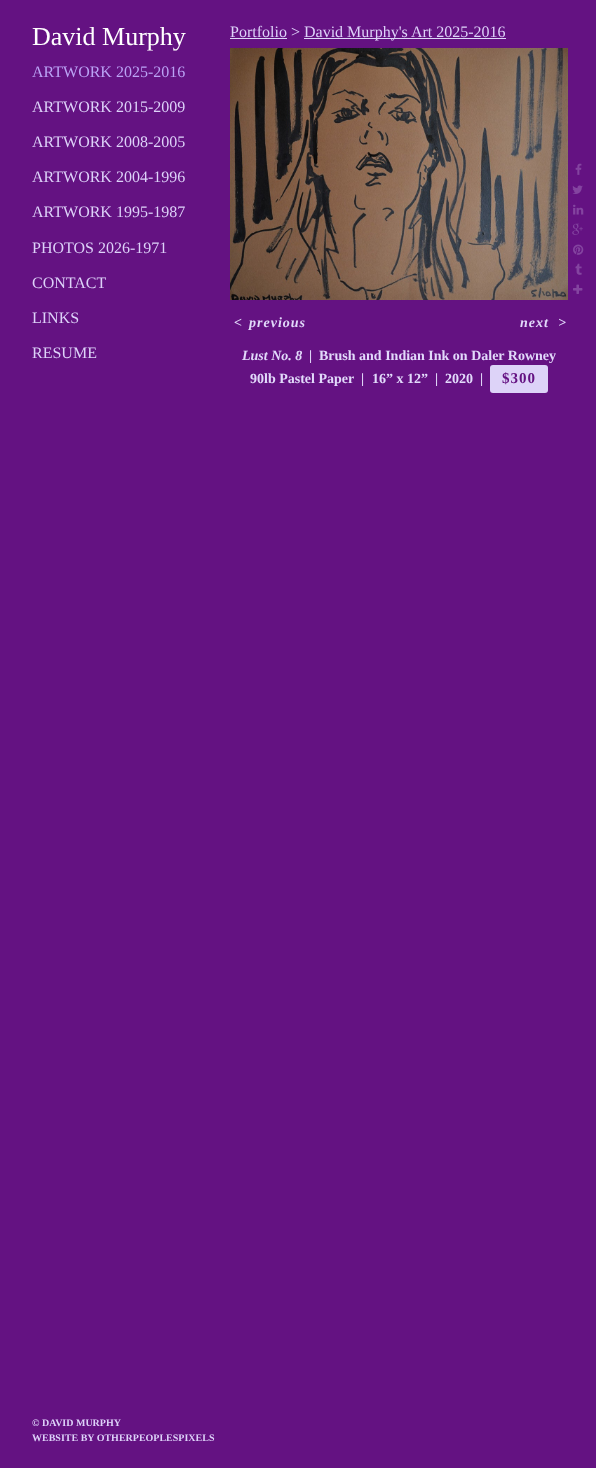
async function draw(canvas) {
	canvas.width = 596;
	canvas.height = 1468;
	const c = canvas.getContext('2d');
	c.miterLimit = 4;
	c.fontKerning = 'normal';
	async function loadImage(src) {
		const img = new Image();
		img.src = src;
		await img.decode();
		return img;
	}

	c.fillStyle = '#641282';
	c.fillRect(0, 0, 596, 1468);
	c.font = '26px Liberation Serif';
	c.fillStyle = '#fff';
	c.fillText('David Murphy', 32, 45);
	c.font = '16px Liberation Serif';
	c.fillStyle = '#bba3f5';
	c.fillText('ARTWORK 2025-2016', 32, 77);
	c.fillStyle = '#ddd2f9';
	for (const [text, x, y] of [
		['ARTWORK 2015-2009', 32, 112],
		['ARTWORK 2008-2005', 32, 147],
		['ARTWORK 2004-1996', 32, 182],
		['ARTWORK 1995-1987', 32, 217],
		['PHOTOS 2026-1971', 32, 253],
		['CONTACT', 32, 288],
		['LINKS', 32, 323],
		['RESUME', 32, 358],
	]) {
		c.fillText(text, x, y);
	}
	c.font = 'bold 10px Liberation Serif';
	c.fillText('© DAVID MURPHY', 32, 1426);
	c.fillText('WEBSITE BY OTHERPEOPLESPIXELS', 32, 1441);
	c.font = '16px Liberation Serif';
	c.fillText('Portfolio >', 230, 37);
	c.fillStyle = '#ddd7f9';
	c.fillRect(230, 38, 57, 1);
	c.fillRect(304, 38, 202, 1);
	c.fillStyle = '#ddd2f9';
	c.fillText('David Murphy\'s Art 2025-2016', 304, 37);
	c.drawImage(await loadImage('img1.png'), 230, 48, 338, 252);
	c.drawImage(await loadImage('img2.png'), 575, 163, 7, 12);
	c.drawImage(await loadImage('img3.png'), 572, 185, 11, 9);
	c.drawImage(await loadImage('img4.png'), 573, 204, 11, 11);
	c.drawImage(await loadImage('img5.png'), 572, 223, 11, 12);
	c.drawImage(await loadImage('img6.png'), 573, 244, 11, 11);
	c.drawImage(await loadImage('img7.png'), 575, 263, 7, 12);
	c.drawImage(await loadImage('img8.png'), 573, 284, 10, 10);
	c.letterSpacing = '1px';
	c.font = 'italic bold 14px Liberation Serif';
	c.fillStyle = '#e2dafb';
	for (const [text, x, y] of [
		['<', 234, 327],
		['previous', 249, 327],
		['next', 520, 327],
		['>', 558, 327],
	]) {
		c.fillText(text, x, y);
	}
	c.letterSpacing = '0px';
	c.fillText('Lust No. 8', 242, 360);
	c.font = 'bold 14px Liberation Serif';
	for (const [text, x, y] of [
		['|', 309, 360],
		['Brush and Indian Ink on Daler Rowney', 319, 360],
		['90lb Pastel Paper', 250, 383],
		['|', 361, 383],
		['16” x 12”', 372, 383],
		['|', 435, 383],
		['2020', 445, 383],
		['|', 480, 383],
	]) {
		c.fillText(text, x, y);
	}
	c.fillStyle = '#ddd3f8';
	c.beginPath();
	c.roundRect(490, 365, 58, 28, 3);
	c.fill();
	c.letterSpacing = '1px';
	c.font = 'bold 15px Liberation Serif';
	c.fillStyle = '#641282';
	c.fillText('$300', 502, 383);
}

draw(document.querySelector('canvas'));
